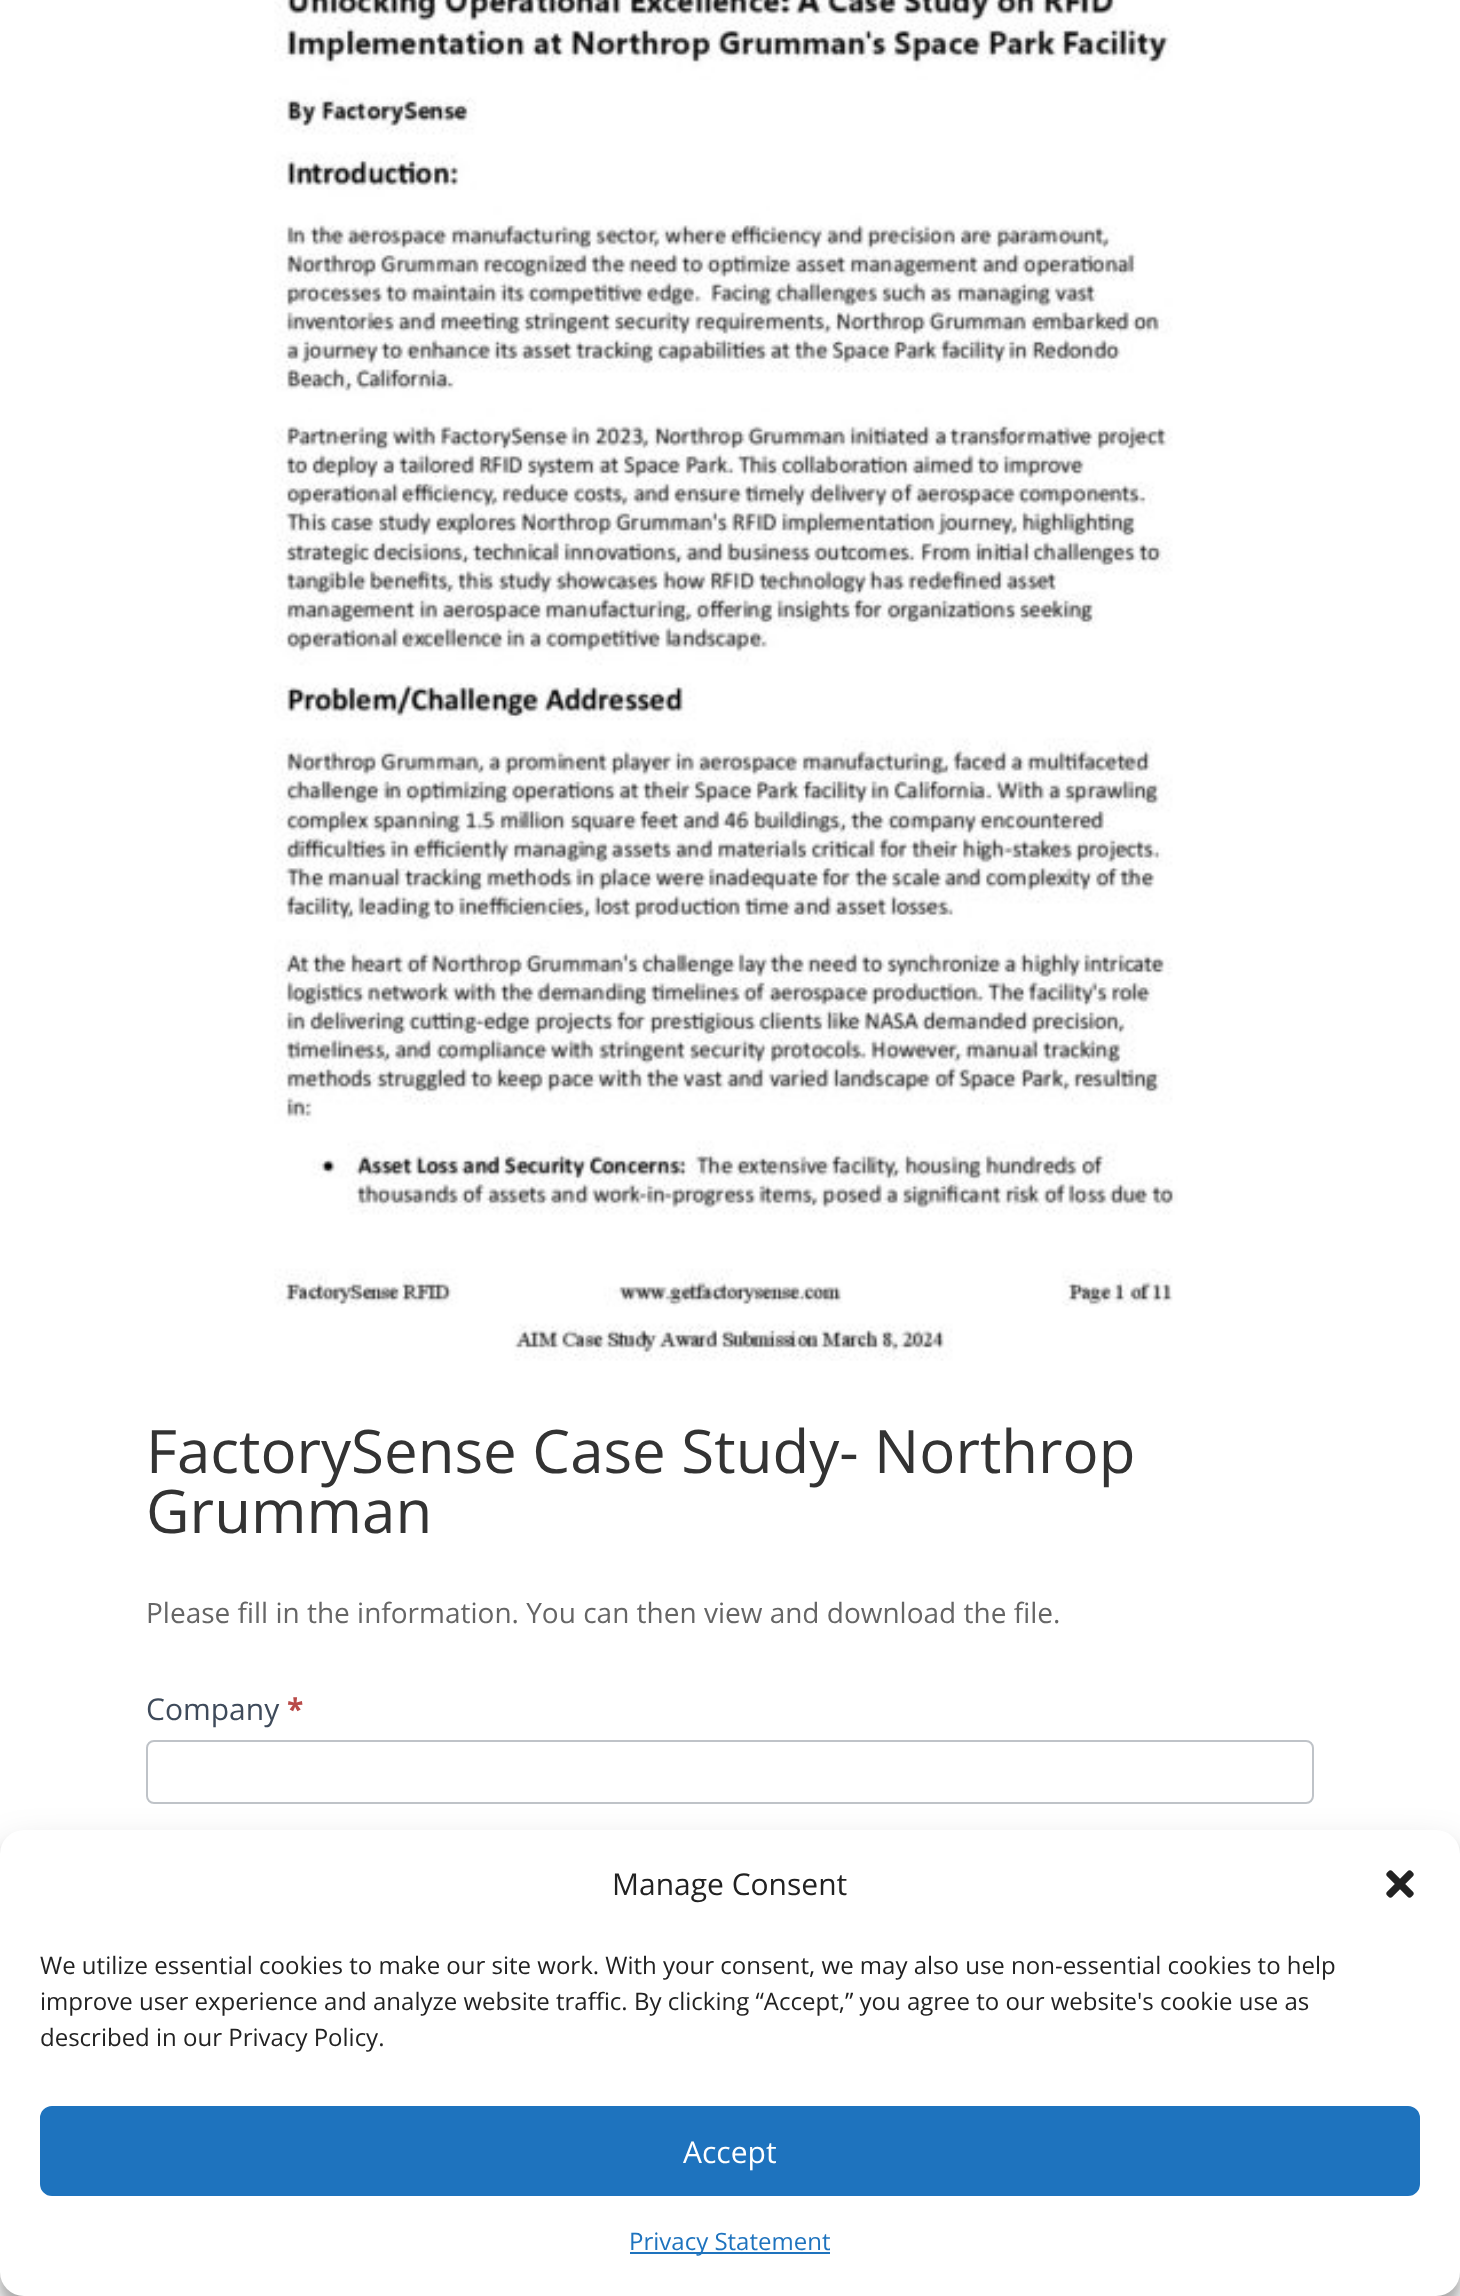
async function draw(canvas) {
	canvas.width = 1460;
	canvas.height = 2296;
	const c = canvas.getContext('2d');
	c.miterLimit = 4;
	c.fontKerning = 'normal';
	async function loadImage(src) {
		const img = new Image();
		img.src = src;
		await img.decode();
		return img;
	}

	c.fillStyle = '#fff';
	c.fillRect(0, 0, 1460, 2296);
	c.drawImage(await loadImage('img1.png'), 274, 0, 904, 1361);
	c.font = '60px Open Sans';
	c.fillStyle = '#333';
	c.fillText('FactorySense Case Study- Northrop', 146, 1473);
	c.fillText('Grumman', 146, 1533);
	c.font = '28px Open Sans';
	c.fillStyle = '#666';
	c.fillText('Please fill in the information. You can then view and download the file.', 146, 1623);
	c.font = '30px Open Sans';
	c.fillStyle = '#3f4b5b';
	c.fillText('Company', 146, 1720);
	c.font = 'bold 30px Open Sans';
	c.fillStyle = '#b94a48';
	c.fillText('*', 287, 1720);
	c.beginPath();
	c.roundRect(147, 1741, 1166, 62, 7);
	c.strokeStyle = '#bfc3c8';
	c.lineWidth = 2;
	c.stroke();
	c.fillStyle = '#0000003b';
	c.filter = 'blur(6px)';
	c.beginPath();
	c.roundRect(0, 1842, 1460, 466, 24);
	c.fill();
	c.filter = 'none';
	c.fillStyle = '#00000030';
	c.filter = 'blur(20px)';
	c.beginPath();
	c.roundRect(0, 1850, 1460, 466, 24);
	c.fill();
	c.filter = 'none';
	c.fillStyle = '#fff';
	c.beginPath();
	c.roundRect(0, 1830, 1460, 466, 24);
	c.fill();
	c.font = '30px Open Sans';
	c.fillStyle = '#222';
	c.fillText('Manage Consent', 612, 1895);
	c.drawImage(await loadImage('img2.png'), 1386, 1870, 28, 28);
	c.font = '24px Open Sans';
	for (const [text, x, y] of [
		['We utilize essential cookies to make our site work. With your consent, we may also use non-essential cookies to help', 40, 1974],
		['improve user experience and analyze website traffic. By clicking “Accept,” you agree to our website\'s cookie use as', 40, 2010],
		['described in our Privacy Policy.', 40, 2046],
	]) {
		c.fillText(text, x, y);
	}
	c.fillStyle = '#1e73be';
	c.beginPath();
	c.roundRect(41, 2107, 1378, 88, 11);
	c.fill();
	c.strokeStyle = '#1e73be';
	c.stroke();
	c.font = '30px Open Sans';
	c.fillStyle = '#fff';
	c.fillText('Accept', 683, 2163);
	c.fillStyle = '#1e73be';
	c.fillRect(630, 2252, 200, 2);
	c.font = '24px Open Sans';
	c.fillText('Privacy Statement', 629, 2250);
}

draw(document.querySelector('canvas'));
